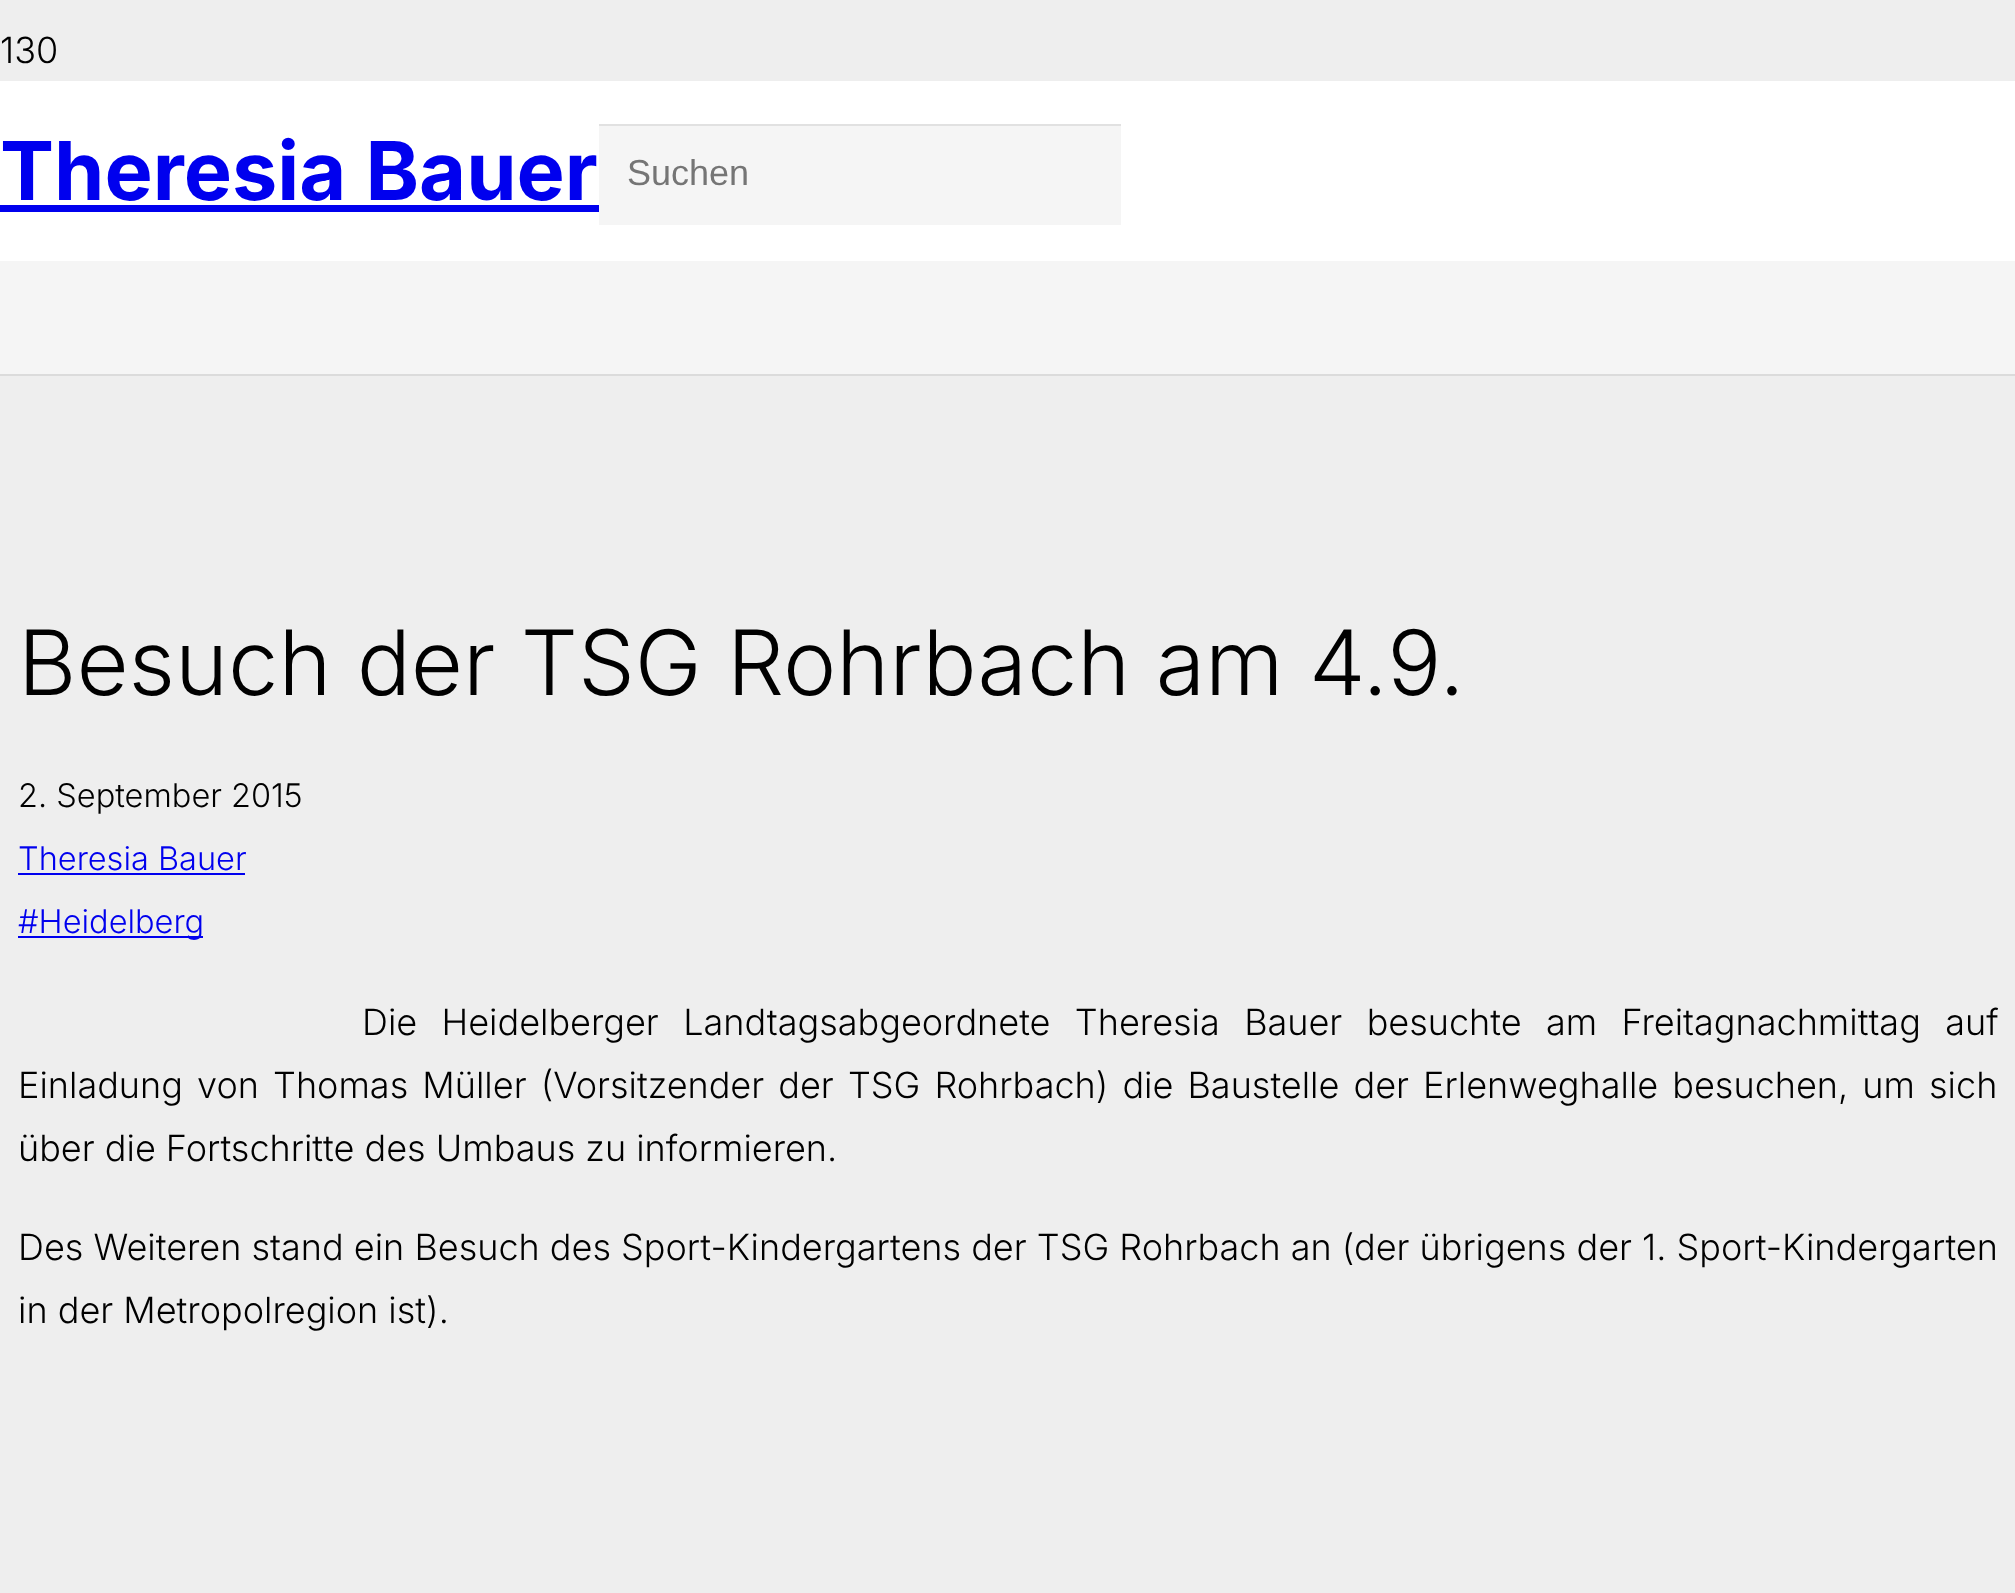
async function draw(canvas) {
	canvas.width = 2015;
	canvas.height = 1593;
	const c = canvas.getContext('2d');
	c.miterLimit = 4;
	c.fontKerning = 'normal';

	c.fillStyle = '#eee';
	c.fillRect(0, 0, 2015, 1593);
	c.font = '300 36px Inter';
	c.fillStyle = '#000';
	c.fillText('130', 0, 63);
	c.fillStyle = '#fff';
	c.fillRect(0, 81, 2015, 180);
	c.font = 'bold 81px Inter';
	c.fillStyle = '#00e';
	c.fillText('Theresia Bauer', 0, 200);
	for (const [x, y, w, h, color] of [
		[0, 205, 599, 7, '#00e'],
		[599, 126, 522, 99, '#f5f5f5'],
		[599, 124, 522, 2, '#e1e1e1'],
	]) {
		c.fillStyle = color;
		c.fillRect(x, y, w, h);
	}
	c.font = '36px Liberation Sans';
	c.fillStyle = '#757575';
	c.fillText('Suchen', 627, 185);
	c.fillStyle = '#dbdbdb';
	c.fillRect(0, 374, 2015, 2);
	c.fillStyle = '#f5f5f5';
	c.fillRect(0, 261, 2015, 113);
	c.font = '300 90px Inter';
	c.fillStyle = '#000';
	c.fillText('Besuch der TSG Rohrbach am 4.9.', 18, 695);
	c.font = '300 32.5px Inter';
	c.fillText('2. September 2015', 18, 807);
	c.fillStyle = '#00e';
	c.fillText('Theresia Bauer', 18, 870);
	c.fillRect(18, 873, 227, 2);
	c.fillRect(18, 936, 185, 2);
	c.fillText('#Heidelberg', 18, 933);
	c.wordSpacing = '14.25px';
	c.font = '300 36px Inter';
	c.fillStyle = '#000';
	c.fillText('Die Heidelberger Landtagsabgeordnete Theresia Bauer besuchte am Freitagnachmittag auf', 362, 1035);
	c.wordSpacing = '4px';
	c.fillText('Einladung von Thomas Müller (Vorsitzender der TSG Rohrbach) die Baustelle der Erlenweghalle besuchen, um sich', 18, 1098);
	c.wordSpacing = '0px';
	for (const [text, x, y] of [
		['über die Fortschritte des Umbaus zu informieren.', 18, 1161],
		['Des Weiteren stand ein Besuch des Sport-Kindergartens der TSG Rohrbach an (der übrigens der 1. Sport-Kindergarten', 18, 1260],
		['in der Metropolregion ist).', 18, 1323],
	]) {
		c.fillText(text, x, y);
	}
}

draw(document.querySelector('canvas'));
